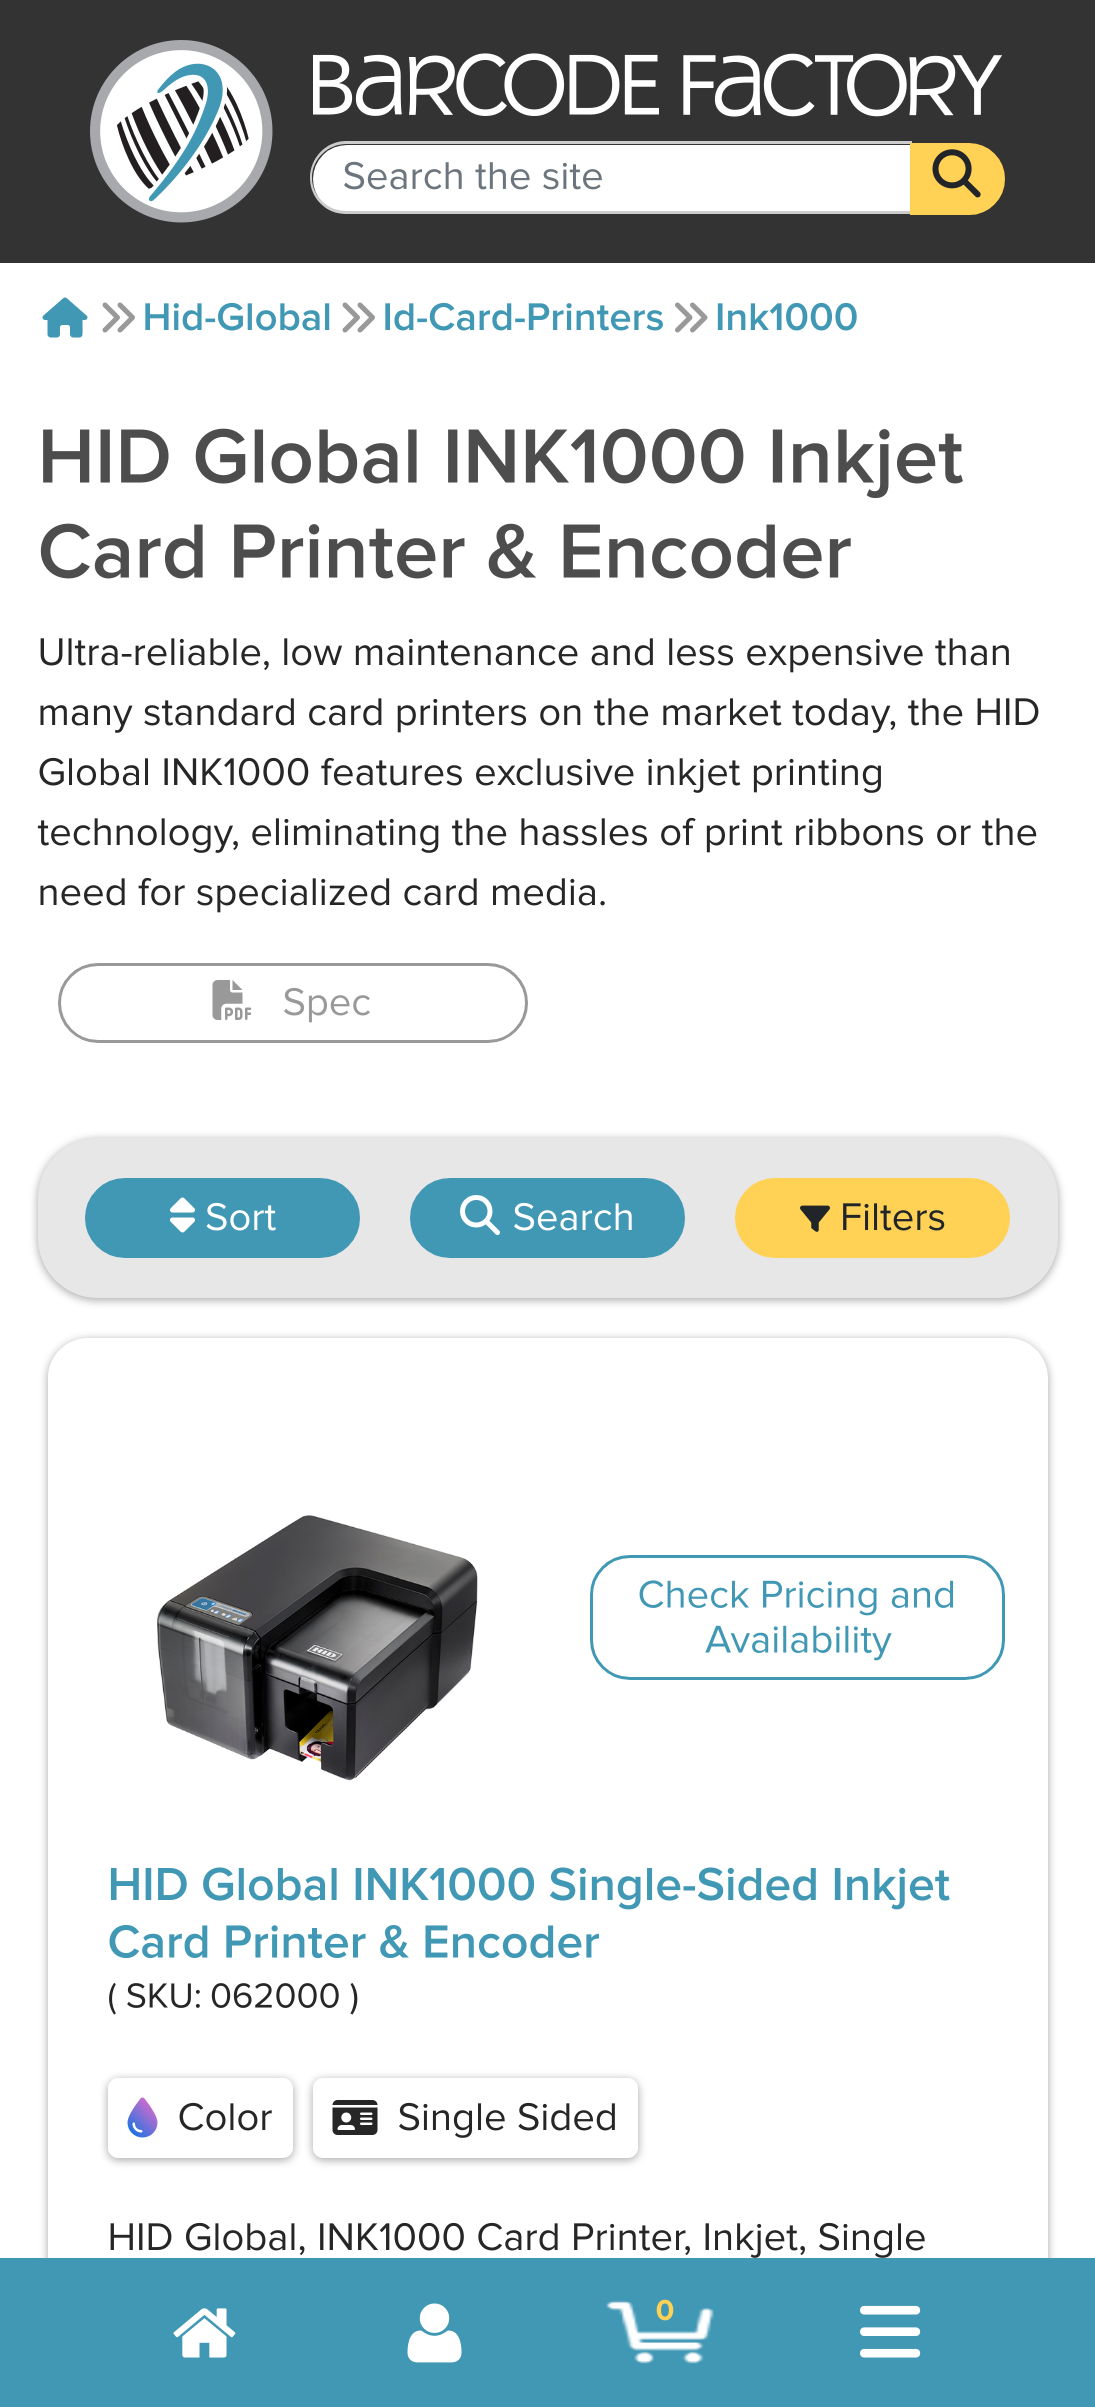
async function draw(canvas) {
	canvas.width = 1095;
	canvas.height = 2407;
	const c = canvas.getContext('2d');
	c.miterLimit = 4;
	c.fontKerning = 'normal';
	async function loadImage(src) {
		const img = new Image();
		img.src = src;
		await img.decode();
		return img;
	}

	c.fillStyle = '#fff';
	c.fillRect(0, 0, 1095, 2407);
	c.fillStyle = '#333';
	c.fillRect(0, 0, 1095, 263);
	c.drawImage(await loadImage('img1.png'), 90, 40, 183, 183);
	c.drawImage(await loadImage('img2.png'), 313, 53, 689, 64);
	c.fillStyle = '#fff';
	c.beginPath();
	c.roundRect(313, 145, 600, 68, [34, 0, 0, 34]);
	c.fill();
	c.fillStyle = '#ccc';
	c.beginPath();
	c.moveTo(346, 141);
	c.lineTo(912, 141);
	c.lineTo(912, 214);
	c.lineTo(346, 214);
	c.bezierCurveTo(326, 214, 310, 198, 310, 178);
	c.bezierCurveTo(310, 158, 326, 141, 346, 141);
	c.closePath();
	c.moveTo(346, 144);
	c.lineTo(912, 144);
	c.lineTo(912, 211);
	c.lineTo(346, 211);
	c.bezierCurveTo(328, 211, 312, 196, 312, 178);
	c.bezierCurveTo(312, 159, 328, 144, 346, 144);
	c.closePath();
	c.fill('evenodd');
	c.fillStyle = '#ffd154';
	c.beginPath();
	c.roundRect(911.5, 144.5, 92, 69, [0, 34.5, 34.5, 0]);
	c.fill();
	c.strokeStyle = '#ffd154';
	c.lineWidth = 3;
	c.stroke();
	c.drawImage(await loadImage('img3.png'), 932, 149, 49, 49);
	c.drawImage(await loadImage('img4.png'), 344, 161, 258, 29);
	c.save();
	c.beginPath();
	c.moveTo(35, 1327);
	c.lineTo(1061, 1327);
	c.lineTo(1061, 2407);
	c.lineTo(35, 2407);
	c.closePath();
	c.moveTo(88, 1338);
	c.lineTo(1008, 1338);
	c.bezierCurveTo(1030, 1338, 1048, 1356, 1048, 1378);
	c.lineTo(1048, 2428);
	c.bezierCurveTo(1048, 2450, 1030, 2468, 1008, 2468);
	c.lineTo(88, 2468);
	c.bezierCurveTo(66, 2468, 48, 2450, 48, 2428);
	c.lineTo(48, 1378);
	c.bezierCurveTo(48, 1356, 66, 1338, 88, 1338);
	c.closePath();
	c.clip('evenodd');
	c.fillStyle = '#0000003d';
	c.filter = 'blur(4px)';
	c.beginPath();
	c.roundRect(48, 1340, 1000, 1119, 40);
	c.fill();
	c.filter = 'none';
	c.restore();
	c.save();
	c.beginPath();
	c.moveTo(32, 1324);
	c.lineTo(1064, 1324);
	c.lineTo(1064, 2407);
	c.lineTo(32, 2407);
	c.closePath();
	c.moveTo(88, 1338);
	c.lineTo(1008, 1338);
	c.bezierCurveTo(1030, 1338, 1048, 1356, 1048, 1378);
	c.lineTo(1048, 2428);
	c.bezierCurveTo(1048, 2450, 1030, 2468, 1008, 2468);
	c.lineTo(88, 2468);
	c.bezierCurveTo(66, 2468, 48, 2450, 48, 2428);
	c.lineTo(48, 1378);
	c.bezierCurveTo(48, 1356, 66, 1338, 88, 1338);
	c.closePath();
	c.clip('evenodd');
	c.fillStyle = '#0000001f';
	c.filter = 'blur(5px)';
	c.beginPath();
	c.roundRect(48, 1340, 1000, 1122, 40);
	c.fill();
	c.filter = 'none';
	c.restore();
	c.fillStyle = '#4198b5';
	c.fillRect(0, 2258, 1095, 149);
	c.drawImage(await loadImage('img5.png'), 173, 2308, 63, 50);
	c.drawImage(await loadImage('img6.png'), 407, 2303, 55, 60);
	c.drawImage(await loadImage('img8.png'), 606, 2300, 108, 64);
	c.drawImage(await loadImage('img7.png'), 656, 2299, 18, 22);
	c.drawImage(await loadImage('img9.png'), 860, 2305, 61, 53);
	c.drawImage(await loadImage('img10.png'), 42, 297, 46, 41);
	c.drawImage(await loadImage('img11.png'), 102, 302, 33, 31);
	c.drawImage(await loadImage('img12.png'), 145, 302, 185, 29);
	c.drawImage(await loadImage('img11.png'), 342, 302, 33, 31);
	c.drawImage(await loadImage('img13.png'), 385, 302, 278, 29);
	c.drawImage(await loadImage('img14.png'), 675, 302, 33, 31);
	c.drawImage(await loadImage('img15.png'), 717, 302, 140, 29);
	c.drawImage(await loadImage('img16.png'), 43, 428, 920, 71);
	c.drawImage(await loadImage('img17.png'), 40, 523, 811, 56);
	c.drawImage(await loadImage('img18.png'), 40, 638, 969, 35);
	c.drawImage(await loadImage('img19.png'), 40, 698, 999, 35);
	c.drawImage(await loadImage('img20.png'), 39, 757, 842, 36);
	c.drawImage(await loadImage('img21.png'), 37, 817, 1000, 36);
	c.drawImage(await loadImage('img22.png'), 40, 877, 565, 36);
	c.beginPath();
	c.roundRect(59.5, 964.5, 467, 77, 38.5);
	c.strokeStyle = '#999';
	c.stroke();
	c.drawImage(await loadImage('img23.png'), 212, 980, 40, 40);
	c.drawImage(await loadImage('img24.png'), 284, 987, 86, 36);
	c.fillStyle = '#0000003d';
	c.filter = 'blur(4px)';
	c.beginPath();
	c.roundRect(38, 1140, 1020, 160, 60);
	c.fill();
	c.filter = 'none';
	c.fillStyle = '#0000001f';
	c.filter = 'blur(5px)';
	c.beginPath();
	c.roundRect(38, 1140, 1020, 160, 60);
	c.fill();
	c.filter = 'none';
	c.fillStyle = '#e7e7e7';
	c.beginPath();
	c.roundRect(38, 1138, 1020, 160, 60);
	c.fill();
	c.fillStyle = '#4198b5';
	c.beginPath();
	c.roundRect(86.5, 1179.5, 272, 77, 38.5);
	c.fill();
	c.strokeStyle = '#4198b5';
	c.stroke();
	c.drawImage(await loadImage('img25.png'), 170, 1197, 25, 36);
	c.drawImage(await loadImage('img26.png'), 206, 1202, 70, 29);
	c.beginPath();
	c.roundRect(411.5, 1179.5, 272, 77, 38.5);
	c.fill();
	c.stroke();
	c.drawImage(await loadImage('img27.png'), 460, 1195, 40, 40);
	c.drawImage(await loadImage('img28.png'), 514, 1202, 118, 29);
	c.fillStyle = '#ffd154';
	c.beginPath();
	c.roundRect(736.5, 1179.5, 272, 77, 38.5);
	c.fill();
	c.strokeStyle = '#ffd154';
	c.stroke();
	c.drawImage(await loadImage('img29.png'), 800, 1205, 30, 27);
	c.drawImage(await loadImage('img30.png'), 843, 1203, 102, 28);
	c.drawImage(await loadImage('img31.png'), 156, 1515, 322, 266);
	c.beginPath();
	c.roundRect(591.5, 1556.5, 412, 122, 38.5);
	c.strokeStyle = '#4198b5';
	c.stroke();
	c.drawImage(await loadImage('img32.png'), 639, 1580, 315, 36);
	c.drawImage(await loadImage('img33.png'), 705, 1625, 187, 36);
	c.drawImage(await loadImage('img34.png'), 110, 1867, 840, 43);
	c.drawImage(await loadImage('img35.png'), 109, 1924, 490, 35);
	c.drawImage(await loadImage('img36.png'), 109, 1982, 91, 33);
	c.drawImage(await loadImage('img37.png'), 211, 1983, 128, 25);
	c.fillStyle = '#262626';
	c.beginPath();
	c.moveTo(350.5, 2013.5);
	c.bezierCurveTo(355.5, 2004, 355.5, 1993.5, 350.5, 1984);
	c.lineTo(352.5, 1983);
	c.bezierCurveTo(359, 1992, 359, 2005.5, 352.5, 2014.5);
	c.closePath();
	c.fill();
	c.save();
	c.beginPath();
	c.moveTo(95, 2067);
	c.lineTo(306, 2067);
	c.lineTo(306, 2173);
	c.lineTo(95, 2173);
	c.closePath();
	c.moveTo(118, 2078);
	c.lineTo(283, 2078);
	c.bezierCurveTo(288.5, 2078, 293, 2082.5, 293, 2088);
	c.lineTo(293, 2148);
	c.bezierCurveTo(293, 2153.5, 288.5, 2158, 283, 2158);
	c.lineTo(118, 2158);
	c.bezierCurveTo(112.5, 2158, 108, 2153.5, 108, 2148);
	c.lineTo(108, 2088);
	c.bezierCurveTo(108, 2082.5, 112.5, 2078, 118, 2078);
	c.closePath();
	c.clip('evenodd');
	c.fillStyle = '#0000003d';
	c.filter = 'blur(4px)';
	c.beginPath();
	c.roundRect(108, 2080, 185, 80, 10);
	c.fill();
	c.filter = 'none';
	c.restore();
	c.save();
	c.beginPath();
	c.moveTo(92, 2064);
	c.lineTo(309, 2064);
	c.lineTo(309, 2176);
	c.lineTo(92, 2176);
	c.closePath();
	c.moveTo(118, 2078);
	c.lineTo(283, 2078);
	c.bezierCurveTo(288.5, 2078, 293, 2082.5, 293, 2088);
	c.lineTo(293, 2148);
	c.bezierCurveTo(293, 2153.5, 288.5, 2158, 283, 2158);
	c.lineTo(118, 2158);
	c.bezierCurveTo(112.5, 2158, 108, 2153.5, 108, 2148);
	c.lineTo(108, 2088);
	c.bezierCurveTo(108, 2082.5, 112.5, 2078, 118, 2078);
	c.closePath();
	c.clip('evenodd');
	c.fillStyle = '#0000001f';
	c.filter = 'blur(5px)';
	c.beginPath();
	c.roundRect(108, 2080, 185, 80, 10);
	c.fill();
	c.filter = 'none';
	c.restore();
	c.drawImage(await loadImage('img38.png'), 127, 2097, 31, 41);
	c.drawImage(await loadImage('img39.png'), 179, 2102, 93, 29);
	c.save();
	c.beginPath();
	c.moveTo(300, 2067);
	c.lineTo(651, 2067);
	c.lineTo(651, 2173);
	c.lineTo(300, 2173);
	c.closePath();
	c.moveTo(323, 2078);
	c.lineTo(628, 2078);
	c.bezierCurveTo(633.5, 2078, 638, 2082.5, 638, 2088);
	c.lineTo(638, 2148);
	c.bezierCurveTo(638, 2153.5, 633.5, 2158, 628, 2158);
	c.lineTo(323, 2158);
	c.bezierCurveTo(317.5, 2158, 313, 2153.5, 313, 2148);
	c.lineTo(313, 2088);
	c.bezierCurveTo(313, 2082.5, 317.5, 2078, 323, 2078);
	c.closePath();
	c.clip('evenodd');
	c.fillStyle = '#0000003d';
	c.filter = 'blur(4px)';
	c.beginPath();
	c.roundRect(313, 2080, 325, 80, 10);
	c.fill();
	c.filter = 'none';
	c.restore();
	c.save();
	c.beginPath();
	c.moveTo(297, 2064);
	c.lineTo(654, 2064);
	c.lineTo(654, 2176);
	c.lineTo(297, 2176);
	c.closePath();
	c.moveTo(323, 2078);
	c.lineTo(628, 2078);
	c.bezierCurveTo(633.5, 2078, 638, 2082.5, 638, 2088);
	c.lineTo(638, 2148);
	c.bezierCurveTo(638, 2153.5, 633.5, 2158, 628, 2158);
	c.lineTo(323, 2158);
	c.bezierCurveTo(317.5, 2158, 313, 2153.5, 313, 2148);
	c.lineTo(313, 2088);
	c.bezierCurveTo(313, 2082.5, 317.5, 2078, 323, 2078);
	c.closePath();
	c.clip('evenodd');
	c.fillStyle = '#0000001f';
	c.filter = 'blur(5px)';
	c.beginPath();
	c.roundRect(313, 2080, 325, 80, 10);
	c.fill();
	c.filter = 'none';
	c.restore();
	c.drawImage(await loadImage('img40.png'), 332, 2100, 46, 35);
	c.drawImage(await loadImage('img41.png'), 399, 2102, 216, 36);
	c.drawImage(await loadImage('img42.png'), 110, 2222, 815, 36);
}

draw(document.querySelector('canvas'));
